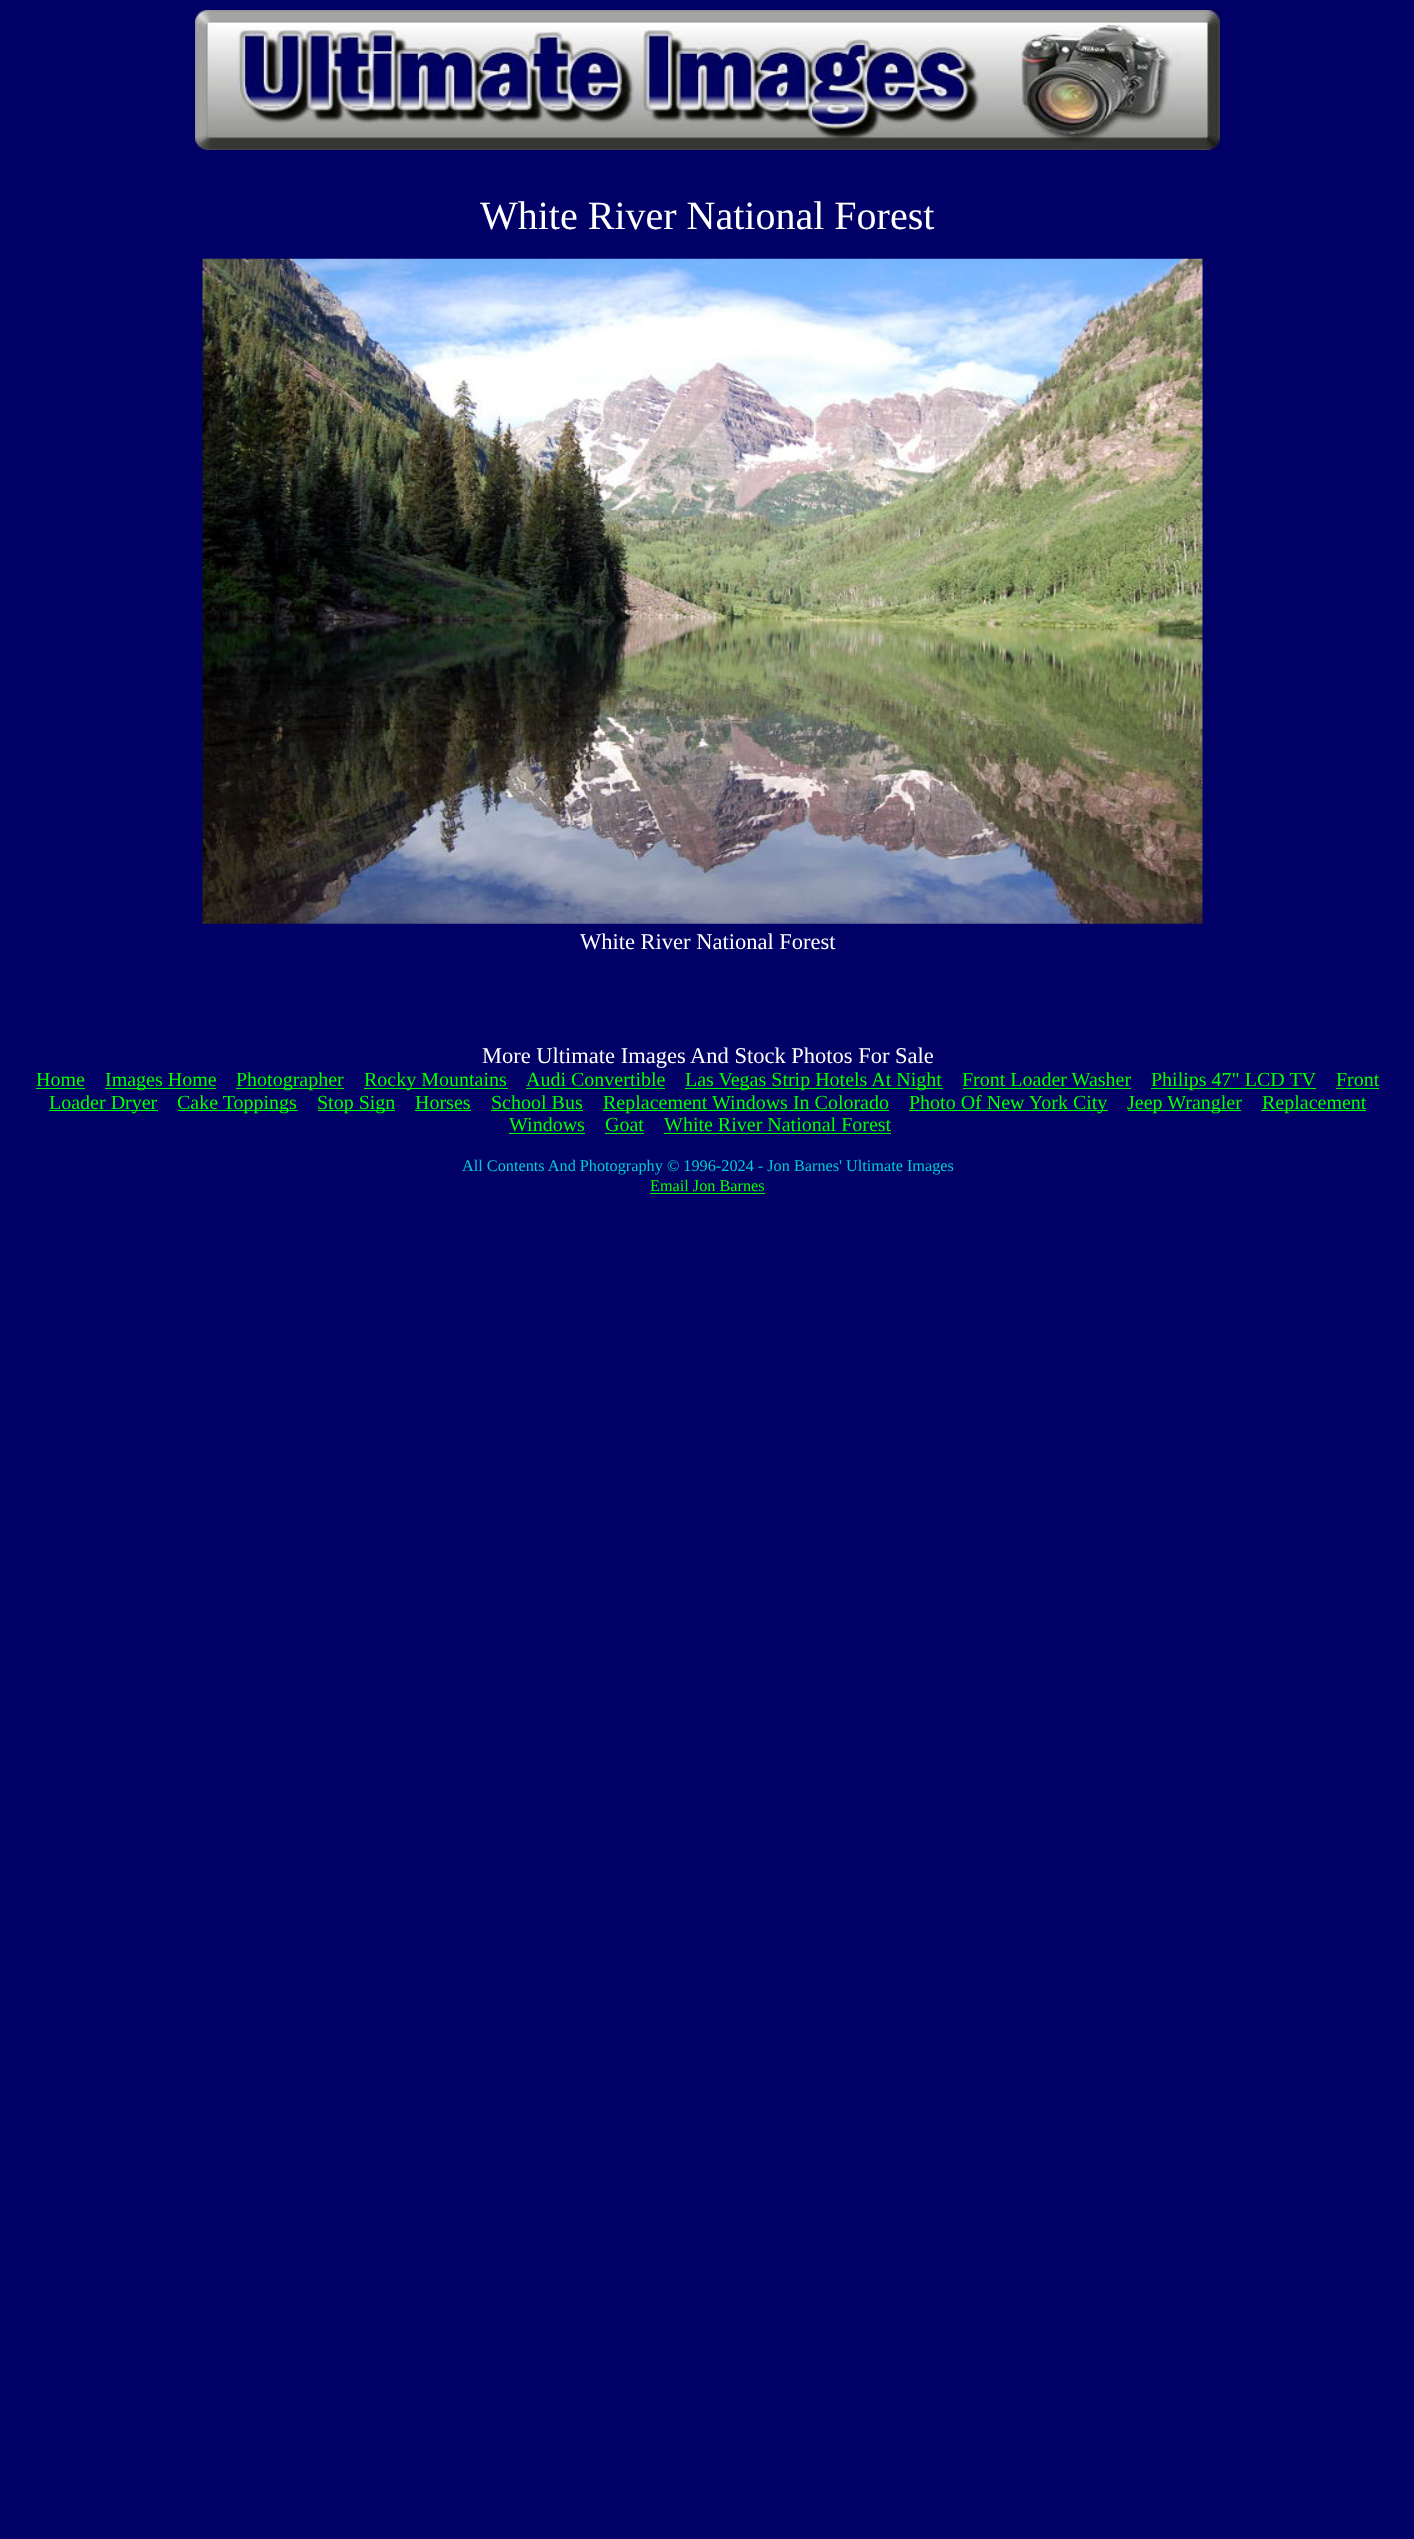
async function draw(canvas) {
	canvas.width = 1414;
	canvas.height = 2539;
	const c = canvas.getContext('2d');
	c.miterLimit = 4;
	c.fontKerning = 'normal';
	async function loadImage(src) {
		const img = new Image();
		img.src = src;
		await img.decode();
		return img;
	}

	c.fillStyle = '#006';
	c.fillRect(0, 0, 1414, 2539);
	c.drawImage(await loadImage('img1.png'), 195, 10, 1025, 140);
	c.font = '40px Liberation Serif';
	c.fillStyle = '#fff';
	c.fillText('White River National Forest', 480, 229);
	c.drawImage(await loadImage('img2.png'), 202, 258, 1001, 666);
	c.font = '22.5px Liberation Serif';
	c.fillText('White River National Forest', 580, 949);
	c.fillText('More Ultimate Images And Stock Photos For Sale', 482, 1063);
	c.font = '20px Liberation Serif';
	c.fillStyle = '#0f0';
	c.fillText('Home', 36, 1086);
	c.fillRect(36, 1088, 49, 1);
	c.fillRect(105, 1088, 111, 1);
	c.fillText('Images Home', 105, 1086);
	c.fillRect(236, 1088, 108, 1);
	c.fillText('Photographer', 236, 1086);
	c.fillRect(364, 1088, 144, 1);
	c.fillText('Rocky Mountains', 364, 1086);
	c.fillText('Audi Convertible', 526, 1086);
	c.fillRect(526, 1088, 139, 1);
	c.fillRect(685, 1088, 258, 1);
	c.fillText('Las Vegas Strip Hotels At Night', 685, 1086);
	c.fillText('Front Loader Washer', 962, 1086);
	c.fillRect(963, 1088, 168, 1);
	c.fillRect(1151, 1088, 165, 1);
	c.fillText('Philips 47" LCD TV', 1151, 1086);
	c.fillText('Front', 1336, 1086);
	c.fillRect(1336, 1088, 43, 1);
	c.fillRect(49, 1110, 109, 1);
	c.fillText('Loader Dryer', 49, 1109);
	c.fillRect(178, 1110, 120, 1);
	c.fillText('Cake Toppings', 177, 1109);
	c.fillRect(318, 1110, 77, 1);
	c.fillText('Stop Sign', 317, 1109);
	c.fillText('Horses', 415, 1109);
	c.fillRect(415, 1110, 56, 1);
	c.fillText('School Bus', 491, 1109);
	c.fillRect(491, 1110, 92, 1);
	c.fillRect(603, 1110, 286, 1);
	c.fillText('Replacement Windows In Colorado', 603, 1109);
	c.fillRect(909, 1110, 199, 1);
	c.fillText('Photo Of New York City', 909, 1109);
	c.fillRect(1128, 1110, 113, 1);
	c.fillText('Jeep Wrangler', 1127, 1109);
	c.fillRect(1261, 1110, 105, 1);
	c.fillText('Replacement', 1262, 1109);
	c.fillText('Windows', 509, 1131);
	c.fillRect(509, 1133, 76, 1);
	c.fillText('Goat', 605, 1131);
	c.fillRect(605, 1133, 39, 1);
	c.fillText('White River National Forest', 664, 1131);
	c.fillRect(664, 1133, 227, 1);
	c.font = '16.25px Liberation Serif';
	c.fillStyle = '#0cc';
	c.fillText('All Contents And Photography © 1996-2024 - Jon Barnes\' Ultimate Images', 462, 1171);
	c.fillStyle = '#0f0';
	c.fillText('Email Jon Barnes', 650, 1191);
	c.fillRect(650, 1193, 115, 1);
}

draw(document.querySelector('canvas'));
